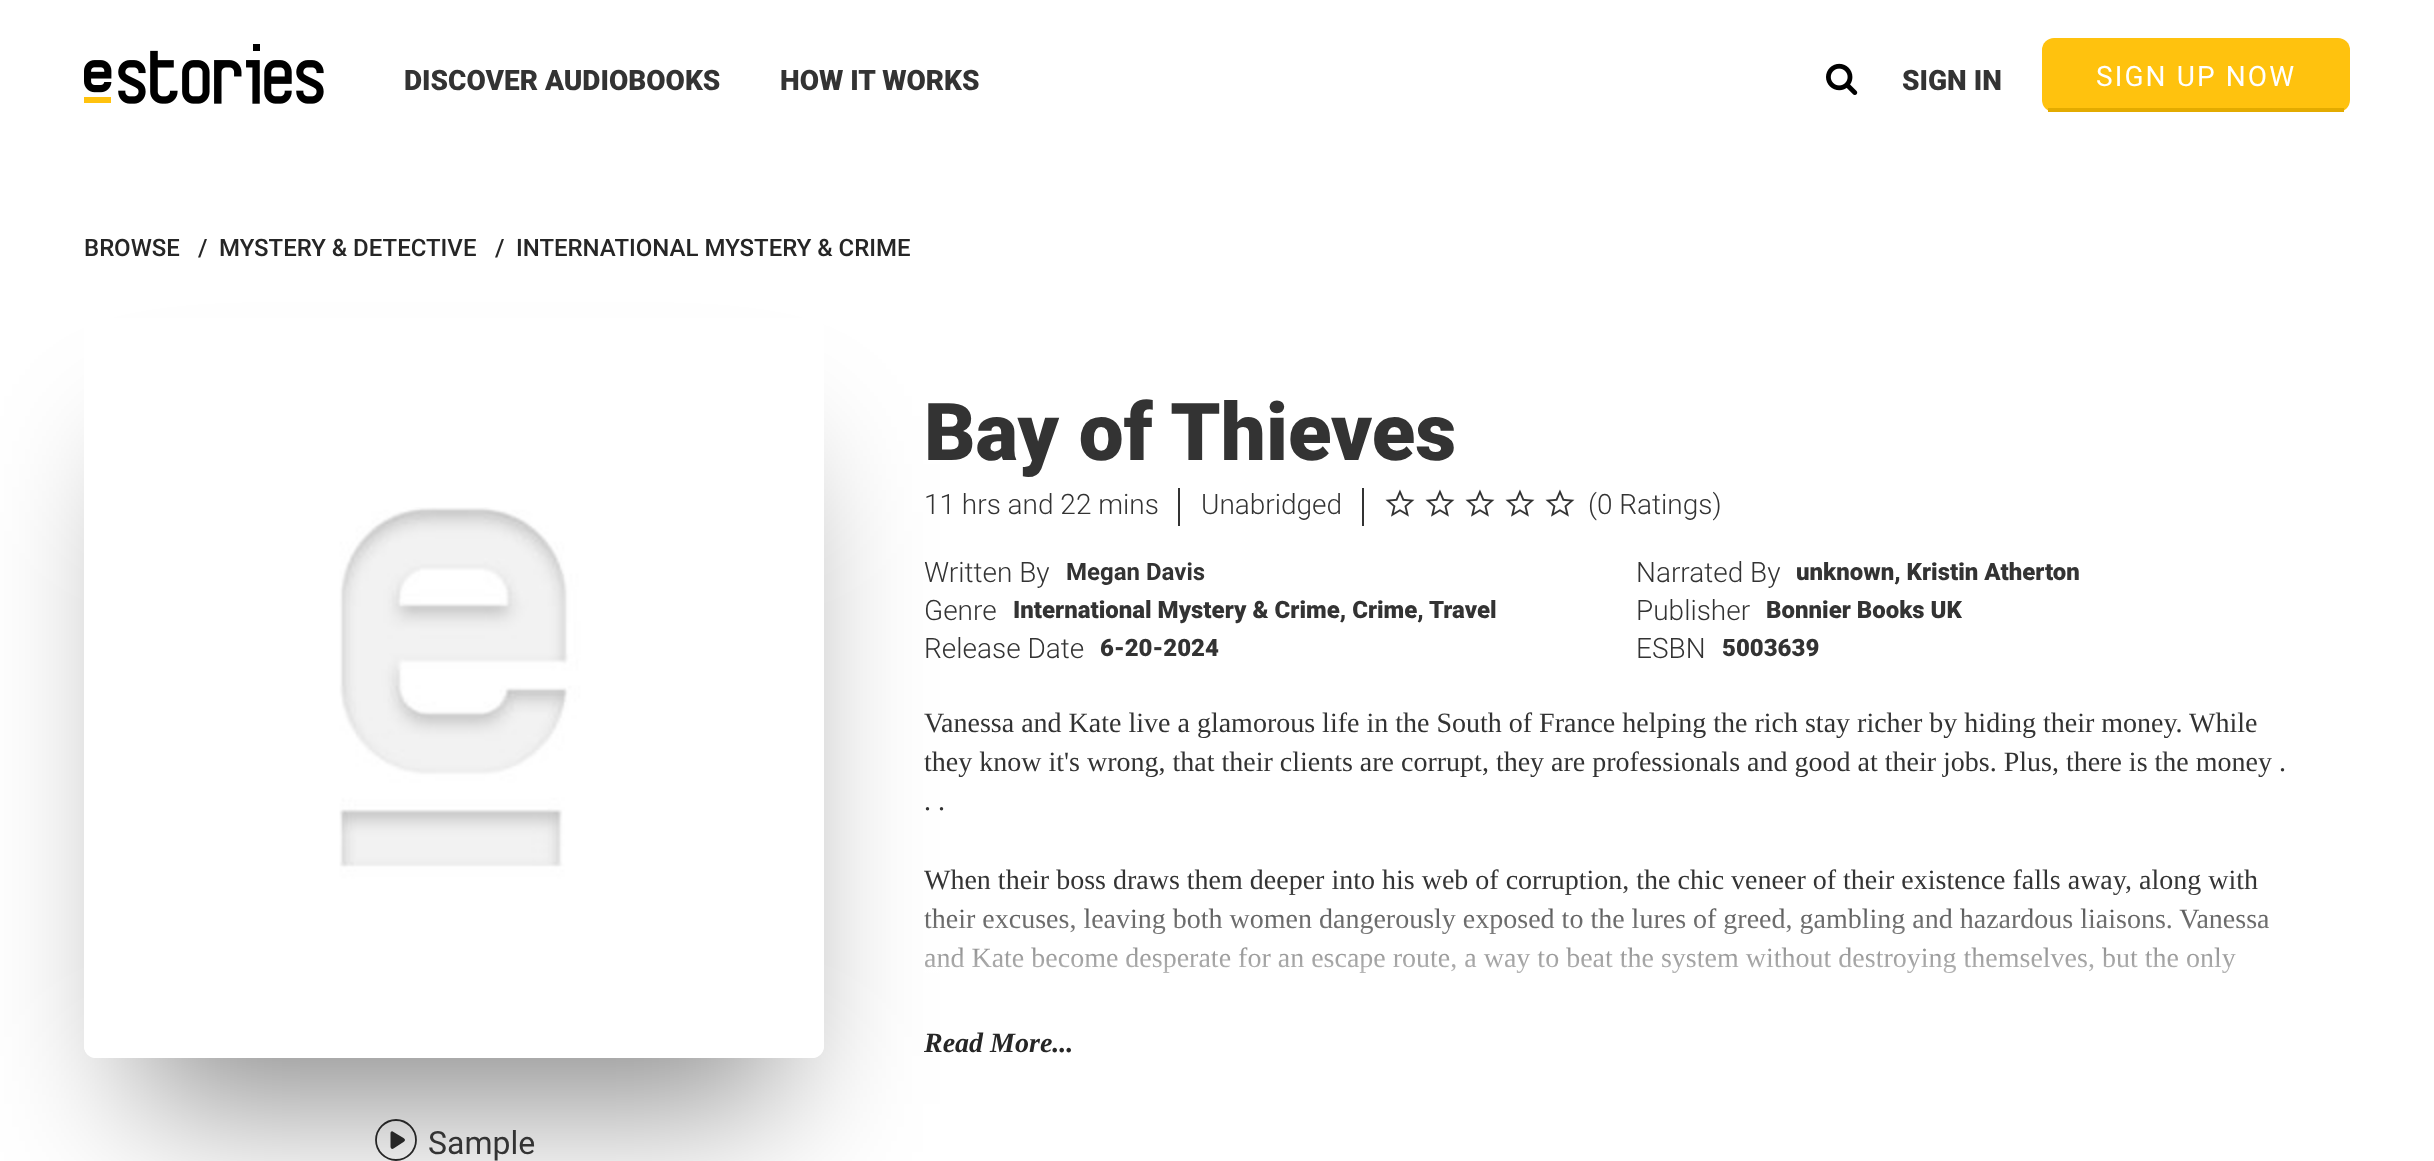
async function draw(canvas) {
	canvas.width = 2434;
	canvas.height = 1161;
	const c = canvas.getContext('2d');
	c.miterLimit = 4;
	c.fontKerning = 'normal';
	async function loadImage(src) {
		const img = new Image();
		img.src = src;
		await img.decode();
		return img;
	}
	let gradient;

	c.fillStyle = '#fff';
	c.fillRect(0, 0, 2434, 1161);
	c.drawImage(await loadImage('img1.png'), 84, 44, 240, 60);
	c.font = '900 28px Roboto';
	c.fillStyle = '#333';
	c.fillText('DISCOVER AUDIOBOOKS', 404, 90);
	c.fillText('HOW IT WORKS', 780, 90);
	c.drawImage(await loadImage('img2.png'), 1826, 63, 32, 32);
	c.fillText('SIGN IN', 1902, 90);
	c.fillStyle = '#ffc20e';
	c.beginPath();
	c.roundRect(2042, 38, 308, 74, 12);
	c.fill();
	c.fillStyle = '#e3ab00';
	c.fillRect(2048, 108, 296, 4);
	c.letterSpacing = '2.1px';
	c.font = '28px Roboto';
	c.fillStyle = '#fff';
	c.fillText('SIGN UP NOW', 2096, 86);
	c.letterSpacing = '0px';
	c.font = '500 24px Roboto';
	c.fillStyle = '#262626';
	for (const [text, x, y] of [
		['BROWSE', 84, 256],
		['/', 198, 256],
		['MYSTERY & DETECTIVE', 219, 256],
		['/', 495, 256],
		['INTERNATIONAL MYSTERY & CRIME', 516, 256],
	]) {
		c.fillText(text, x, y);
	}
	c.font = '900 80px Roboto';
	c.fillStyle = '#333';
	c.fillText('Bay of Thieves', 924, 460);
	c.font = '300 28px Roboto';
	c.fillText('11 hrs and 22 mins', 924, 514);
	c.fillRect(1178, 488, 2, 38);
	c.fillText('Unabridged', 1201, 514);
	c.fillRect(1362, 488, 2, 38);
	c.drawImage(await loadImage('img3.png'), 1385, 489, 30, 28);
	c.drawImage(await loadImage('img3.png'), 1425, 489, 30, 28);
	c.drawImage(await loadImage('img3.png'), 1465, 489, 30, 28);
	c.drawImage(await loadImage('img3.png'), 1505, 489, 30, 28);
	c.drawImage(await loadImage('img3.png'), 1545, 489, 30, 28);
	c.fillText('(0 Ratings)', 1588, 514);
	c.fillText('Written By', 924, 582);
	c.font = 'bold 24px Roboto';
	c.fillText('Megan Davis', 1066, 580);
	c.font = '300 28px Roboto';
	c.fillText('Narrated By', 1636, 582);
	c.font = '900 24px Roboto';
	c.fillText('unknown, Kristin Atherton', 1796, 580);
	c.font = '300 28px Roboto';
	c.fillText('Genre', 924, 620);
	c.font = '900 24px Roboto';
	c.fillText('International Mystery & Crime, Crime,', 1013, 618);
	c.fillText('Travel', 1429, 618);
	c.font = '300 28px Roboto';
	c.fillText('Publisher', 1636, 620);
	c.font = '900 24px Roboto';
	c.fillText('Bonnier Books UK', 1766, 618);
	c.font = '300 28px Roboto';
	c.fillText('Release Date', 924, 658);
	c.font = '900 24px Roboto';
	c.fillText('6-20-2024', 1100, 656);
	c.font = '300 28px Roboto';
	c.fillText('ESBN', 1636, 658);
	c.font = '900 24px Roboto';
	c.fillText('5003639', 1722, 656);
	c.save();
	c.beginPath();
	c.moveTo(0, 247);
	c.lineTo(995, 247);
	c.lineTo(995, 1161);
	c.lineTo(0, 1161);
	c.closePath();
	c.moveTo(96, 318);
	c.lineTo(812, 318);
	c.bezierCurveTo(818.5, 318, 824, 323.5, 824, 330);
	c.lineTo(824, 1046);
	c.bezierCurveTo(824, 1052.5, 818.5, 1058, 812, 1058);
	c.lineTo(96, 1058);
	c.bezierCurveTo(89.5, 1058, 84, 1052.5, 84, 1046);
	c.lineTo(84, 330);
	c.bezierCurveTo(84, 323.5, 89.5, 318, 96, 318);
	c.closePath();
	c.clip('evenodd');
	c.fillStyle = '#00000073';
	c.filter = 'blur(72px)';
	c.beginPath();
	c.rect(138, 464, 640, 640);
	c.fill();
	c.filter = 'none';
	c.restore();
	c.font = '28px Liberation Serif';
	for (const [text, x, y] of [
		['Vanessa and Kate live a glamorous life in the South of France helping the rich stay richer by hiding their money. While', 924, 732],
		['they know it\'s wrong, that their clients are corrupt, they are professionals and good at their jobs. Plus, there is the money .', 924, 771],
		['. .', 924, 810],
		['When their boss draws them deeper into his web of corruption, the chic veneer of their existence falls away, along with', 924, 889],
		['their excuses, leaving both women dangerously exposed to the lures of greed, gambling and hazardous liaisons. Vanessa', 924, 928],
		['and Kate become desperate for an escape route, a way to beat the system without destroying themselves, but the only', 924, 967],
	]) {
		c.fillText(text, x, y);
	}
	gradient = c.createLinearGradient(1606, 882, 1606, 1024);
	gradient.addColorStop(0, '#ffffff00');
	gradient.addColorStop(1, '#fff');
	c.fillStyle = gradient;
	c.fillRect(924, 885, 1346, 88);
	c.font = 'italic bold 28px Liberation Serif';
	c.fillStyle = '#262626';
	c.fillText('Read More...', 924, 1052);
	c.drawImage(await loadImage('img4.png'), 84, 507, 740, 551);
	c.beginPath();
	c.arc(396, 1140, 20, 0, 2 * Math.PI);
	c.strokeStyle = '#262626';
	c.lineWidth = 1.8;
	c.stroke();
	c.beginPath();
	c.moveTo(393.5, 1148.5);
	c.bezierCurveTo(392, 1149.5, 390.5, 1148.5, 390.5, 1146.5);
	c.lineTo(390.5, 1133.5);
	c.bezierCurveTo(390.5, 1131.5, 392, 1130.5, 393.5, 1132);
	c.lineTo(403.5, 1138);
	c.bezierCurveTo(405.5, 1139, 405.5, 1141, 403.5, 1142);
	c.closePath();
	c.fill('evenodd');
	c.font = '32px Roboto';
	c.fillStyle = '#333';
	c.fillText('Sample', 428, 1154);
}

draw(document.querySelector('canvas'));
